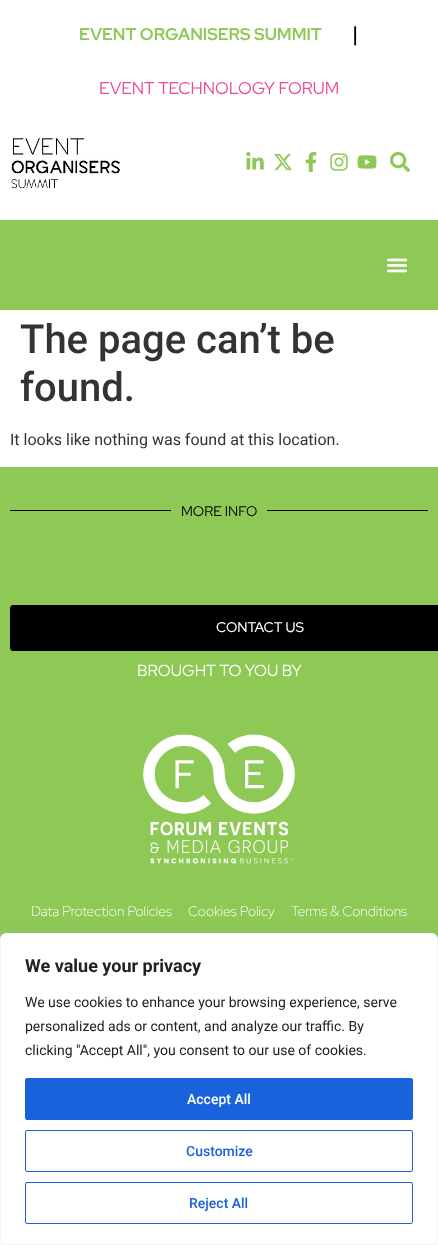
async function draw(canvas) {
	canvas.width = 438;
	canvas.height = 1245;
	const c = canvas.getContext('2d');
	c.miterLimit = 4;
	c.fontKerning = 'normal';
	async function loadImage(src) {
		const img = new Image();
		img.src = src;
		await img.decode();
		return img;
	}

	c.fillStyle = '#fff';
	c.fillRect(0, 0, 438, 1245);
	c.font = 'bold 17px Red Hat Display';
	c.fillStyle = '#8ec855';
	c.fillText('EVENT ORGANISERS SUMMIT', 79, 40);
	c.font = '600 21px Red Hat Display';
	c.fillStyle = '#000';
	c.fillText('|', 352, 41);
	c.font = '17px Red Hat Display';
	c.fillStyle = '#eb4a9a';
	c.fillText('EVENT TECHNOLOGY FORUM', 99, 94);
	c.drawImage(await loadImage('img1.png'), 11, 136, 109, 53);
	c.drawImage(await loadImage('img2.png'), 246, 152, 18, 18);
	c.drawImage(await loadImage('img3.png'), 274, 153, 18, 18);
	c.drawImage(await loadImage('img4.png'), 305, 152, 12, 20);
	c.drawImage(await loadImage('img5.png'), 330, 153, 18, 18);
	c.drawImage(await loadImage('img6.png'), 357, 155, 20, 14);
	c.drawImage(await loadImage('img7.png'), 390, 152, 20, 20);
	c.fillStyle = '#8ec855';
	c.fillRect(0, 220, 438, 90);
	c.drawImage(await loadImage('img8.png'), 386, 258, 21, 15);
	c.font = '500 40px Roboto';
	c.fillStyle = '#333';
	c.fillText('The page can’t be', 20, 353);
	c.fillText('found.', 20, 401);
	c.font = '16px Roboto';
	c.fillText('It looks like nothing was found at this location.', 10, 445);
	c.fillStyle = '#8ec855';
	c.fillRect(0, 467, 438, 472);
	c.fillStyle = '#000';
	c.fillRect(10, 510, 161, 1);
	c.font = '14px Red Hat Display';
	c.fillText('MORE INFO', 181, 516);
	c.fillRect(267, 510, 161, 1);
	c.beginPath();
	c.roundRect(10.5, 605.5, 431, 45, 2.5);
	c.fill();
	c.strokeStyle = '#000';
	c.stroke();
	c.font = '500 14px Red Hat Display';
	c.fillStyle = '#fff';
	c.fillText('CONTACT US', 216, 632);
	c.font = '16px Red Hat Display';
	c.fillText('BROUGHT TO YOU BY', 137, 676);
	c.drawImage(await loadImage('img9.png'), 143, 734, 152, 130);
	c.font = '300 14px Red Hat Display';
	for (const [text, x, y] of [
		['Data Protection Policies', 31, 916],
		['Cookies Policy', 188, 916],
		['Terms & Conditions', 291, 916],
	]) {
		c.fillText(text, x, y);
	}
	c.fillStyle = '#acabab4d';
	c.filter = 'blur(5px)';
	c.beginPath();
	c.roundRect(0, 932, 438, 312, 6);
	c.fill();
	c.filter = 'none';
	c.fillStyle = '#fff';
	c.beginPath();
	c.roundRect(0.5, 933.5, 437, 311, 5.5);
	c.fill();
	c.strokeStyle = '#f4f4f4';
	c.stroke();
	c.font = 'bold 18px Roboto';
	c.fillStyle = '#212121';
	c.fillText('We value your privacy', 25, 972);
	c.font = '14px Roboto';
	for (const [text, x, y] of [
		['We use cookies to enhance your browsing experience, serve', 25, 1007],
		['personalized ads or content, and analyze our traffic. By', 25, 1031],
		['clicking "Accept All", you consent to our use of cookies.', 25, 1055],
	]) {
		c.fillText(text, x, y);
	}
	c.fillStyle = '#1863dc';
	c.beginPath();
	c.roundRect(25.5, 1078.5, 387, 41, 1.5);
	c.fill();
	c.strokeStyle = '#1863dc';
	c.stroke();
	c.font = '500 14px Roboto';
	c.fillStyle = '#fff';
	c.fillText('Accept All', 187, 1104);
	c.beginPath();
	c.roundRect(25.5, 1130.5, 387, 41, 1.5);
	c.stroke();
	c.fillStyle = '#1863dc';
	c.fillText('Customize', 186, 1156);
	c.beginPath();
	c.roundRect(25.5, 1182.5, 387, 41, 1.5);
	c.stroke();
	c.fillText('Reject All', 189, 1208);
}

draw(document.querySelector('canvas'));
